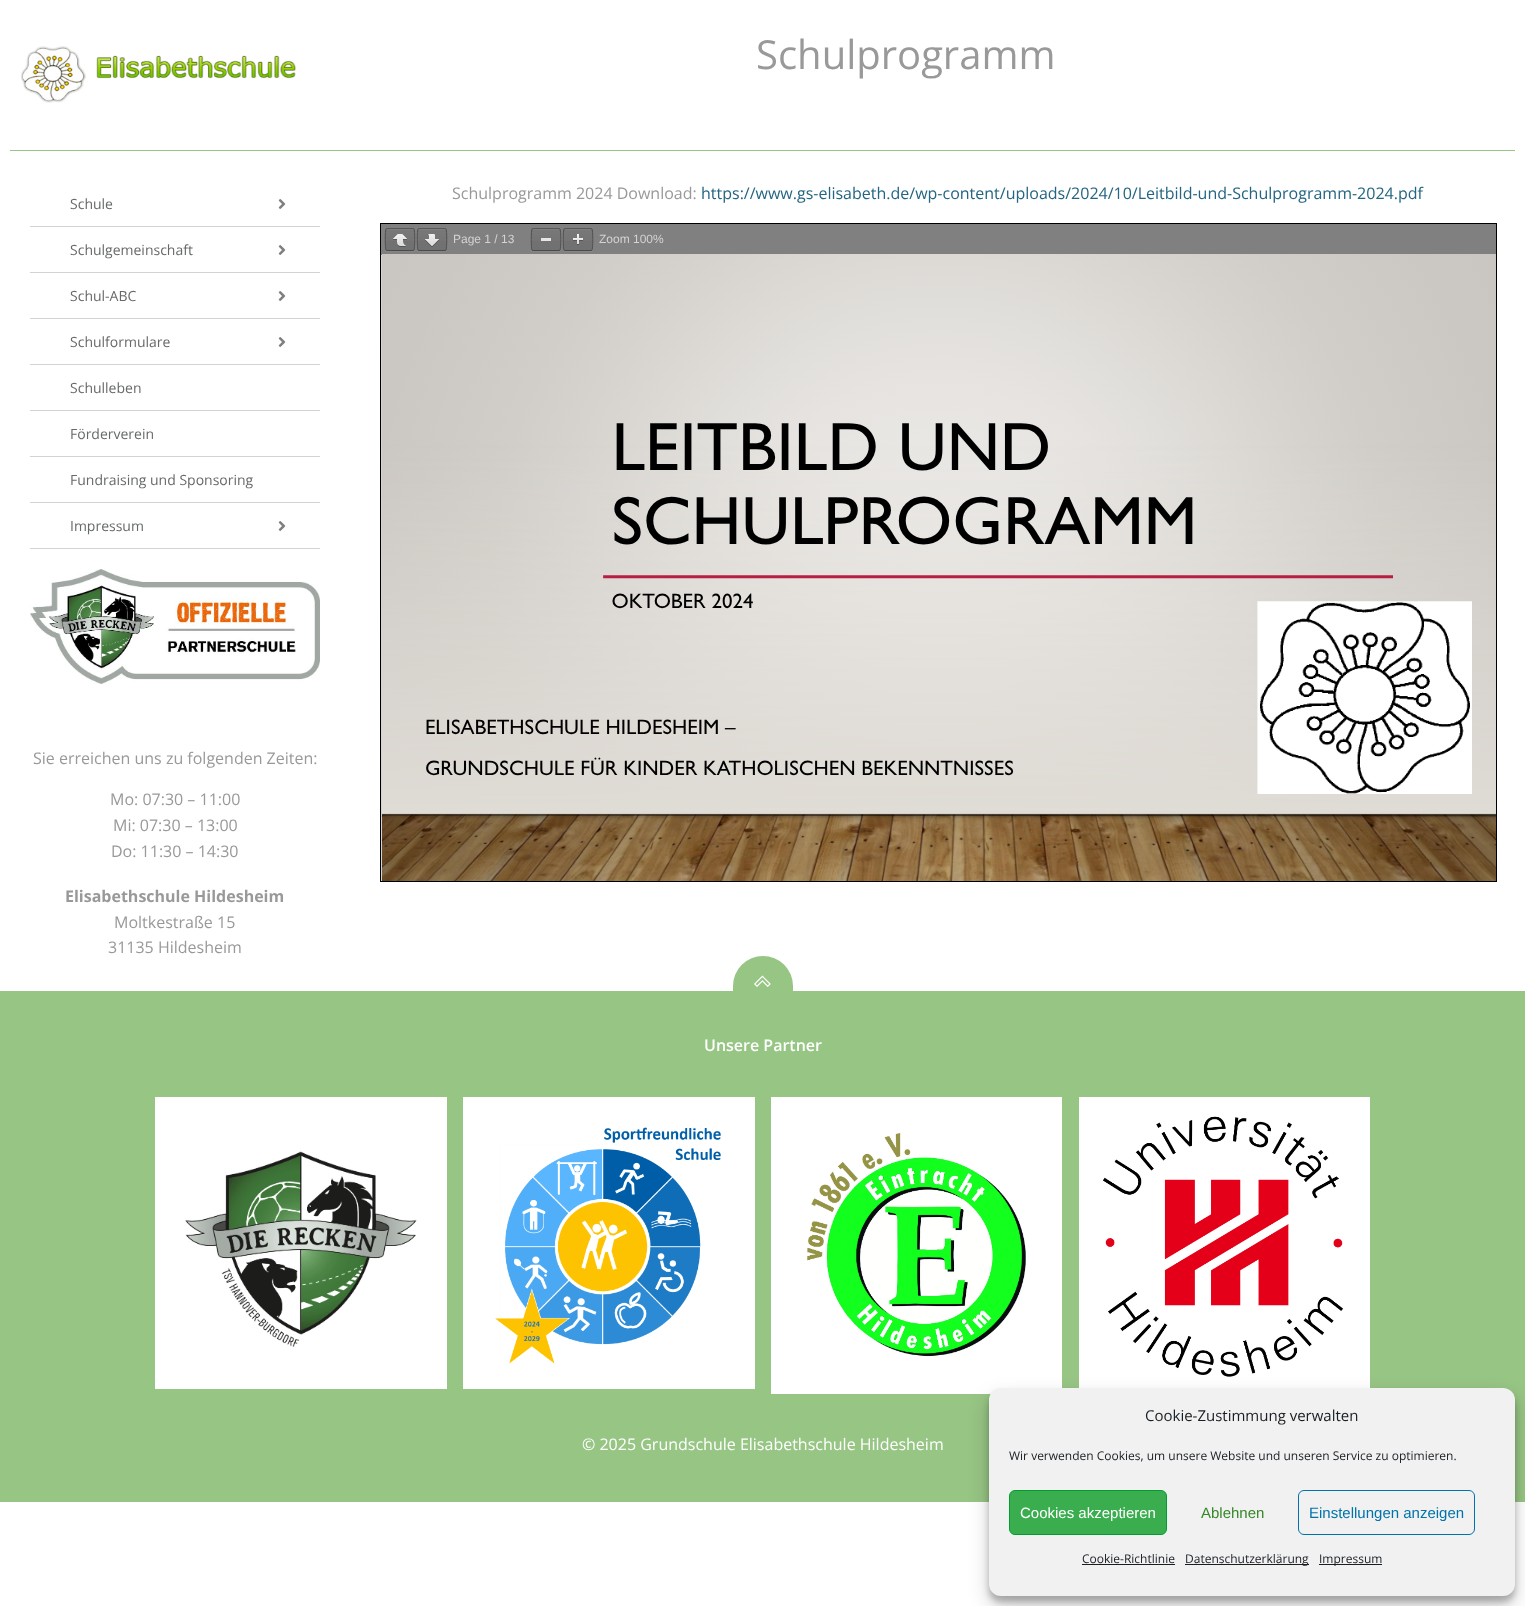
async function draw(canvas) {
	canvas.width = 1525;
	canvas.height = 1606;
	const c = canvas.getContext('2d');
	c.miterLimit = 4;
	c.fontKerning = 'normal';
	async function loadImage(src) {
		const img = new Image();
		img.src = src;
		await img.decode();
		return img;
	}
	let gradient;

	c.fillStyle = '#fff';
	c.fillRect(0, 0, 1525, 1606);
	c.fillStyle = '#97c584';
	c.fillRect(10, 150, 1505, 1);
	c.drawImage(await loadImage('img1.png'), 21, 46, 275, 57);
	c.font = '40px Open Sans';
	c.fillStyle = '#999';
	c.fillText('Schulprogramm', 756, 69);
	c.fillStyle = '#d1d3d4';
	c.fillRect(30, 226, 290, 1);
	c.font = '14px Open Sans';
	c.fillStyle = '#66696a';
	c.fillText('Schule', 70, 209);
	c.drawImage(await loadImage('img2.png'), 278, 199, 8, 10);
	c.fillStyle = '#d1d3d4';
	c.fillRect(30, 272, 290, 1);
	c.fillStyle = '#66696a';
	c.fillText('Schulgemeinschaft', 70, 255);
	c.drawImage(await loadImage('img2.png'), 278, 245, 8, 10);
	c.fillStyle = '#d1d3d4';
	c.fillRect(30, 318, 290, 1);
	c.fillStyle = '#66696a';
	c.fillText('Schul-ABC', 70, 301);
	c.drawImage(await loadImage('img2.png'), 278, 291, 8, 10);
	c.fillStyle = '#d1d3d4';
	c.fillRect(30, 364, 290, 1);
	c.fillStyle = '#66696a';
	c.fillText('Schulformulare', 70, 347);
	c.drawImage(await loadImage('img2.png'), 278, 337, 8, 10);
	c.fillStyle = '#d1d3d4';
	c.fillRect(30, 410, 290, 1);
	c.fillStyle = '#66696a';
	c.fillText('Schulleben', 70, 393);
	c.fillStyle = '#d1d3d4';
	c.fillRect(30, 456, 290, 1);
	c.fillStyle = '#66696a';
	c.fillText('Förderverein', 70, 439);
	c.fillStyle = '#d1d3d4';
	c.fillRect(30, 502, 290, 1);
	c.fillStyle = '#66696a';
	c.fillText('Fundraising und Sponsoring', 70, 485);
	c.fillStyle = '#d1d3d4';
	c.fillRect(30, 548, 290, 1);
	c.fillStyle = '#66696a';
	c.fillText('Impressum', 70, 531);
	c.drawImage(await loadImage('img2.png'), 278, 521, 8, 10);
	c.drawImage(await loadImage('img3.png'), 30, 569, 290, 115);
	c.font = '16px Open Sans';
	c.fillStyle = '#999';
	for (const [text, x, y] of [
		['Sie erreichen uns zu folgenden Zeiten:', 33, 764],
		['Mo: 07:30 – 11:00', 110, 805],
		['Mi: 07:30 – 13:00', 113, 831],
		['Do: 11:30 – 14:30', 111, 857],
	]) {
		c.fillText(text, x, y);
	}
	c.font = 'bold 16px Open Sans';
	c.fillText('Elisabethschule Hildesheim', 65, 902);
	c.font = '16px Open Sans';
	for (const [text, x, y] of [
		['Moltkestraße 15', 114, 928],
		['31135 Hildesheim', 108, 953],
		['Schulprogramm 2024 Download:', 452, 199],
	]) {
		c.fillText(text, x, y);
	}
	c.fillStyle = '#236582';
	c.fillText('https://www.gs-elisabeth.de/wp-content/uploads/2024/10/Leitbild-und-Schulprogramm-2024.pdf', 701, 199);
	c.fillStyle = '#d3d3d3';
	c.fillRect(381, 255, 1, 626);
	c.strokeStyle = '#000';
	c.strokeRect(380.5, 223.5, 1116, 658);
	c.fillStyle = '#808080';
	c.fillRect(381, 224, 1115, 31);
	c.fillStyle = '#868686';
	c.beginPath();
	c.moveTo(385, 249);
	c.bezierCurveTo(385, 253, 387.5, 252, 391.5, 252);
	c.lineTo(408.5, 252);
	c.bezierCurveTo(412.5, 252, 415, 253, 415, 249);
	c.bezierCurveTo(415, 250, 414, 251, 413, 251);
	c.lineTo(387, 251);
	c.bezierCurveTo(386, 251, 385, 250, 385, 249);
	c.closePath();
	c.fill();
	c.fillStyle = '#717171';
	c.beginPath();
	c.roundRect(386, 229, 28, 21, 1);
	c.fill();
	gradient = c.createLinearGradient(400, 229, 400, 250);
	gradient.addColorStop(0, '#ffffff0d');
	gradient.addColorStop(1, '#ffffff00');
	c.fillStyle = gradient;
	c.fillRect(386, 229, 28, 12);
	c.fillStyle = '#7f7f7f';
	c.beginPath();
	c.moveTo(387, 230);
	c.lineTo(414, 230);
	c.lineTo(414, 231);
	c.bezierCurveTo(414, 228, 412, 229, 408.5, 229);
	c.lineTo(391.5, 229);
	c.bezierCurveTo(388, 229, 386, 228, 386, 231);
	c.bezierCurveTo(386, 230, 386, 230, 387, 230);
	c.closePath();
	c.fill();
	c.beginPath();
	c.moveTo(386, 229);
	c.lineTo(387, 228.5);
	c.lineTo(413, 228.5);
	c.lineTo(414, 229);
	c.strokeStyle = '#575757';
	c.stroke();
	c.beginPath();
	c.moveTo(414, 229);
	c.bezierCurveTo(415, 230, 415, 249, 414, 250);
	c.strokeStyle = '#4f4f4f';
	c.stroke();
	c.beginPath();
	c.moveTo(414, 250);
	c.lineTo(413, 250.5);
	c.lineTo(387, 250.5);
	c.lineTo(386, 250);
	c.strokeStyle = '#4a4a4a';
	c.stroke();
	c.beginPath();
	c.moveTo(386, 250);
	c.bezierCurveTo(385, 249, 385, 230, 386, 229);
	c.strokeStyle = '#4f4f4f';
	c.stroke();
	c.drawImage(await loadImage('img4.png'), 393, 234, 14, 13);
	c.fillStyle = '#868686';
	c.beginPath();
	c.moveTo(417, 249);
	c.bezierCurveTo(417, 253, 419.5, 252, 423.5, 252);
	c.lineTo(440.5, 252);
	c.bezierCurveTo(444.5, 252, 447, 253, 447, 249);
	c.bezierCurveTo(447, 250, 446, 251, 445, 251);
	c.lineTo(419, 251);
	c.bezierCurveTo(418, 251, 417, 250, 417, 249);
	c.closePath();
	c.fill();
	c.fillStyle = '#717171';
	c.beginPath();
	c.roundRect(418, 229, 28, 21, 1);
	c.fill();
	gradient = c.createLinearGradient(432, 229, 432, 250);
	gradient.addColorStop(0, '#ffffff0d');
	gradient.addColorStop(1, '#ffffff00');
	c.fillStyle = gradient;
	c.fillRect(418, 229, 28, 12);
	c.fillStyle = '#7f7f7f';
	c.beginPath();
	c.moveTo(419, 230);
	c.lineTo(446, 230);
	c.lineTo(446, 231);
	c.bezierCurveTo(446, 228, 444, 229, 440.5, 229);
	c.lineTo(423.5, 229);
	c.bezierCurveTo(420, 229, 418, 228, 418, 231);
	c.bezierCurveTo(418, 230, 418, 230, 419, 230);
	c.closePath();
	c.fill();
	c.beginPath();
	c.moveTo(418, 229);
	c.lineTo(419, 228.5);
	c.lineTo(445, 228.5);
	c.lineTo(446, 229);
	c.strokeStyle = '#575757';
	c.stroke();
	c.beginPath();
	c.moveTo(446, 229);
	c.bezierCurveTo(447, 230, 447, 249, 446, 250);
	c.strokeStyle = '#4f4f4f';
	c.stroke();
	c.beginPath();
	c.moveTo(446, 250);
	c.lineTo(445, 250.5);
	c.lineTo(419, 250.5);
	c.lineTo(418, 250);
	c.strokeStyle = '#4a4a4a';
	c.stroke();
	c.beginPath();
	c.moveTo(418, 250);
	c.bezierCurveTo(417, 249, 417, 230, 418, 229);
	c.strokeStyle = '#4f4f4f';
	c.stroke();
	c.drawImage(await loadImage('img5.png'), 425, 234, 14, 13);
	c.font = '12px Liberation Sans';
	c.fillStyle = '#d3d3d3';
	c.fillText('Page 1 / 13', 453, 243);
	c.fillStyle = '#868686';
	c.beginPath();
	c.moveTo(531, 249);
	c.bezierCurveTo(531, 253, 533.5, 252, 537.5, 252);
	c.lineTo(554.5, 252);
	c.bezierCurveTo(558.5, 252, 561, 253, 561, 249);
	c.bezierCurveTo(561, 250, 560, 251, 559, 251);
	c.lineTo(533, 251);
	c.bezierCurveTo(532, 251, 531, 250, 531, 249);
	c.closePath();
	c.fill();
	c.fillStyle = '#717171';
	c.beginPath();
	c.roundRect(532, 229, 28, 21, 1);
	c.fill();
	gradient = c.createLinearGradient(546, 229, 546, 250);
	gradient.addColorStop(0, '#ffffff0d');
	gradient.addColorStop(1, '#ffffff00');
	c.fillStyle = gradient;
	c.fillRect(532, 229, 28, 12);
	c.fillStyle = '#7f7f7f';
	c.beginPath();
	c.moveTo(533, 230);
	c.lineTo(560, 230);
	c.lineTo(560, 231);
	c.bezierCurveTo(560, 228, 558, 229, 554.5, 229);
	c.lineTo(537.5, 229);
	c.bezierCurveTo(534, 229, 532, 228, 532, 231);
	c.bezierCurveTo(532, 230, 532, 230, 533, 230);
	c.closePath();
	c.fill();
	c.beginPath();
	c.moveTo(532, 229);
	c.lineTo(533, 228.5);
	c.lineTo(559, 228.5);
	c.lineTo(560, 229);
	c.strokeStyle = '#575757';
	c.stroke();
	c.beginPath();
	c.moveTo(560, 229);
	c.bezierCurveTo(561, 230, 561, 249, 560, 250);
	c.strokeStyle = '#4f4f4f';
	c.stroke();
	c.beginPath();
	c.moveTo(560, 250);
	c.lineTo(559, 250.5);
	c.lineTo(533, 250.5);
	c.lineTo(532, 250);
	c.strokeStyle = '#4a4a4a';
	c.stroke();
	c.beginPath();
	c.moveTo(532, 250);
	c.bezierCurveTo(531, 249, 531, 230, 532, 229);
	c.strokeStyle = '#4f4f4f';
	c.stroke();
	c.fillStyle = '#e6e6e6';
	c.fillRect(541, 238, 10, 3);
	c.fillStyle = '#868686';
	c.beginPath();
	c.moveTo(563, 249);
	c.bezierCurveTo(563, 253, 565.5, 252, 569.5, 252);
	c.lineTo(586.5, 252);
	c.bezierCurveTo(590.5, 252, 593, 253, 593, 249);
	c.bezierCurveTo(593, 250, 592, 251, 591, 251);
	c.lineTo(565, 251);
	c.bezierCurveTo(564, 251, 563, 250, 563, 249);
	c.closePath();
	c.fill();
	c.fillStyle = '#717171';
	c.beginPath();
	c.roundRect(564, 229, 28, 21, 1);
	c.fill();
	gradient = c.createLinearGradient(578, 229, 578, 250);
	gradient.addColorStop(0, '#ffffff0d');
	gradient.addColorStop(1, '#ffffff00');
	c.fillStyle = gradient;
	c.fillRect(564, 229, 28, 12);
	c.fillStyle = '#7f7f7f';
	c.beginPath();
	c.moveTo(565, 230);
	c.lineTo(592, 230);
	c.lineTo(592, 231);
	c.bezierCurveTo(592, 228, 590, 229, 586.5, 229);
	c.lineTo(569.5, 229);
	c.bezierCurveTo(566, 229, 564, 228, 564, 231);
	c.bezierCurveTo(564, 230, 564, 230, 565, 230);
	c.closePath();
	c.fill();
	c.beginPath();
	c.moveTo(564, 229);
	c.lineTo(565, 228.5);
	c.lineTo(591, 228.5);
	c.lineTo(592, 229);
	c.strokeStyle = '#575757';
	c.stroke();
	c.beginPath();
	c.moveTo(592, 229);
	c.bezierCurveTo(593, 230, 593, 249, 592, 250);
	c.strokeStyle = '#4f4f4f';
	c.stroke();
	c.beginPath();
	c.moveTo(592, 250);
	c.lineTo(591, 250.5);
	c.lineTo(565, 250.5);
	c.lineTo(564, 250);
	c.strokeStyle = '#4a4a4a';
	c.stroke();
	c.beginPath();
	c.moveTo(564, 250);
	c.bezierCurveTo(563, 249, 563, 230, 564, 229);
	c.strokeStyle = '#4f4f4f';
	c.stroke();
	c.drawImage(await loadImage('img6.png'), 573, 234, 10, 11);
	c.fillStyle = '#d3d3d3';
	c.fillText('Zoom 100%', 599, 243);
	c.drawImage(await loadImage('img7.png'), 382, 254, 1114, 627);
	c.fillStyle = '#97c584';
	c.beginPath();
	c.roundRect(733, 956, 60, 35, [30, 30, 0, 0]);
	c.fill();
	c.drawImage(await loadImage('img8.png'), 754, 975, 17, 12);
	c.fillRect(0, 991, 1525, 511);
	c.font = '600 16px Open Sans';
	c.fillStyle = '#fff';
	c.fillText('Unsere Partner', 704, 1051);
	c.fillRect(155, 1097, 292, 292);
	c.drawImage(await loadImage('img9.png'), 185, 1151, 232, 196);
	c.fillRect(463, 1097, 292, 292);
	c.drawImage(await loadImage('img10.png'), 495, 1127, 226, 237);
	c.drawImage(await loadImage('img11.png'), 771, 1097, 291, 297);
	c.drawImage(await loadImage('img12.png'), 1079, 1097, 291, 291);
	c.font = '16px Open Sans';
	c.fillText('© 2025 Grundschule Elisabethschule Hildesheim', 582, 1450);
	c.fillStyle = '#0000003b';
	c.filter = 'blur(3px)';
	c.beginPath();
	c.roundRect(989, 1394, 526, 208, 12);
	c.fill();
	c.filter = 'none';
	c.fillStyle = '#00000030';
	c.filter = 'blur(10px)';
	c.beginPath();
	c.roundRect(989, 1398, 526, 208, 12);
	c.fill();
	c.filter = 'none';
	c.fillStyle = '#f1f1f1';
	c.beginPath();
	c.roundRect(989, 1388, 526, 208, 12);
	c.fill();
	c.font = '15px Open Sans';
	c.fillStyle = '#191e23';
	c.fillText('Cookie-Zustimmung verwalten', 1145, 1421);
	c.font = '12px Open Sans';
	c.fillText('Wir verwenden Cookies, um unsere Website und unseren Service zu optimieren.', 1009, 1460);
	c.fillStyle = '#3aad4f';
	c.beginPath();
	c.roundRect(1009.5, 1490.5, 157, 44, 5.5);
	c.fill();
	c.strokeStyle = '#009e32';
	c.stroke();
	c.font = '15px Liberation Sans';
	c.fillStyle = '#fff';
	c.fillText('Cookies akzeptieren', 1020, 1518);
	c.fillStyle = '#378729';
	c.fillText('Ablehnen', 1201, 1518);
	c.beginPath();
	c.roundRect(1298.5, 1490.5, 176, 44, 5.5);
	c.strokeStyle = '#0073aa';
	c.stroke();
	c.fillStyle = '#0073aa';
	c.fillText('Einstellungen anzeigen', 1309, 1518);
	c.font = '12px Open Sans';
	c.fillStyle = '#191e23';
	c.fillText('Cookie-Richtlinie', 1082, 1563);
	c.fillRect(1082, 1564, 93, 1);
	c.fillRect(1185, 1564, 124, 1);
	c.fillText('Datenschutzerklärung', 1185, 1563);
	c.fillRect(1319, 1564, 63, 1);
	c.fillText('Impressum', 1319, 1563);
}

draw(document.querySelector('canvas'));
